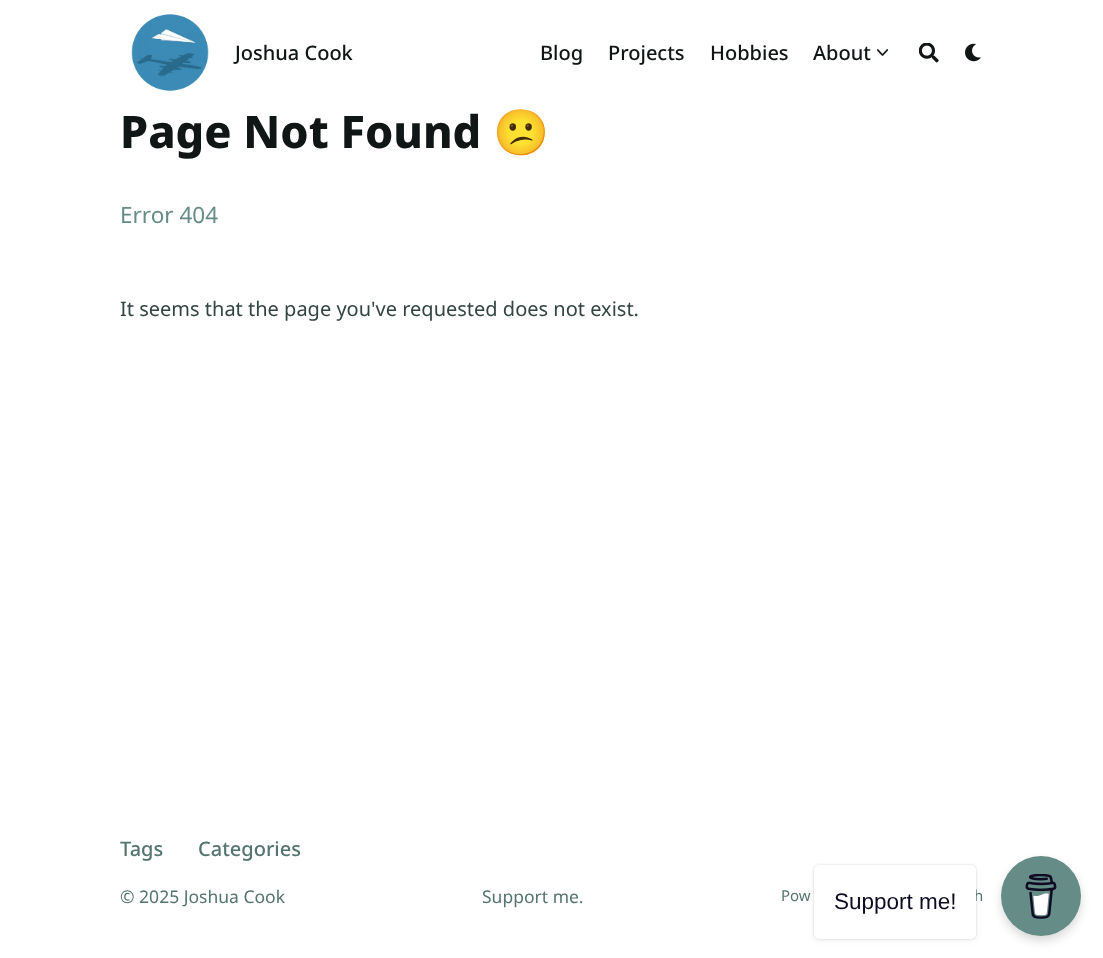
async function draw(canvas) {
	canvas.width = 1103;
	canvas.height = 958;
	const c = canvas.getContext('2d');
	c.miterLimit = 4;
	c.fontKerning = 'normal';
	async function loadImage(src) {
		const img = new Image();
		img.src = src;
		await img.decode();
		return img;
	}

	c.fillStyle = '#fff';
	c.fillRect(0, 0, 1103, 958);
	c.drawImage(await loadImage('img1.png'), 131, 14, 78, 77);
	c.font = '500 20px Noto Sans';
	c.fillStyle = '#101515';
	for (const [text, x, y] of [
		['Joshua Cook', 235, 60],
		['Blog', 540, 60],
		['Projects', 608, 60],
		['Hobbies', 710, 60],
		['About', 813, 60],
	]) {
		c.fillText(text, x, y);
	}
	c.drawImage(await loadImage('img2.png'), 876, 49, 13, 7);
	c.drawImage(await loadImage('img3.png'), 919, 43, 20, 20);
	c.drawImage(await loadImage('img4.png'), 965, 43, 16, 19);
	c.font = '800 45px Noto Sans';
	c.fillText('Page Not Found', 120, 148);
	c.font = 'bold 45px Noto Color Emoji';
	c.fillText('😕', 493, 148);
	c.font = '22.5px Noto Sans';
	c.fillStyle = '#658c86';
	c.fillText('Error 404', 120, 223);
	c.font = '20px Noto Sans';
	c.fillStyle = '#324542';
	c.fillText('It seems that the page you\'ve requested does not exist.', 120, 316);
	c.font = '500 20px Noto Sans';
	c.fillStyle = '#54746f';
	c.fillText('Tags', 120, 856);
	c.fillText('Categories', 198, 856);
	c.font = '17.5px Noto Sans';
	c.fillText('© 2025 Joshua Cook', 120, 903);
	c.fillText('Support me.', 482, 903);
	c.font = '15px Noto Sans';
	c.fillText('Pow', 781, 901);
	c.fillText('h', 974, 901);
	c.fillStyle = '#00000026';
	c.filter = 'blur(5px)';
	c.beginPath();
	c.roundRect(1001, 861, 80, 80, 40);
	c.fill();
	c.filter = 'none';
	c.fillStyle = '#658c86';
	c.beginPath();
	c.arc(1041, 896, 40, 0, 2 * Math.PI);
	c.fill();
	c.drawImage(await loadImage('img5.png'), 1025, 874, 32, 45);
	c.fillStyle = '#00000026';
	c.filter = 'blur(1px)';
	c.beginPath();
	c.roundRect(814, 865, 162, 74, 5);
	c.fill();
	c.filter = 'none';
	c.fillStyle = '#0000000d';
	c.filter = 'blur(3px)';
	c.beginPath();
	c.roundRect(814, 868, 162, 73, 5);
	c.fill();
	c.filter = 'none';
	c.fillStyle = '#fff';
	c.beginPath();
	c.roundRect(814, 865, 162, 74, 5);
	c.fill();
	c.font = '22.5px Liberation Sans';
	c.fillStyle = '#0d0c22';
	c.fillText('Support me!', 834, 909);
}

draw(document.querySelector('canvas'));
